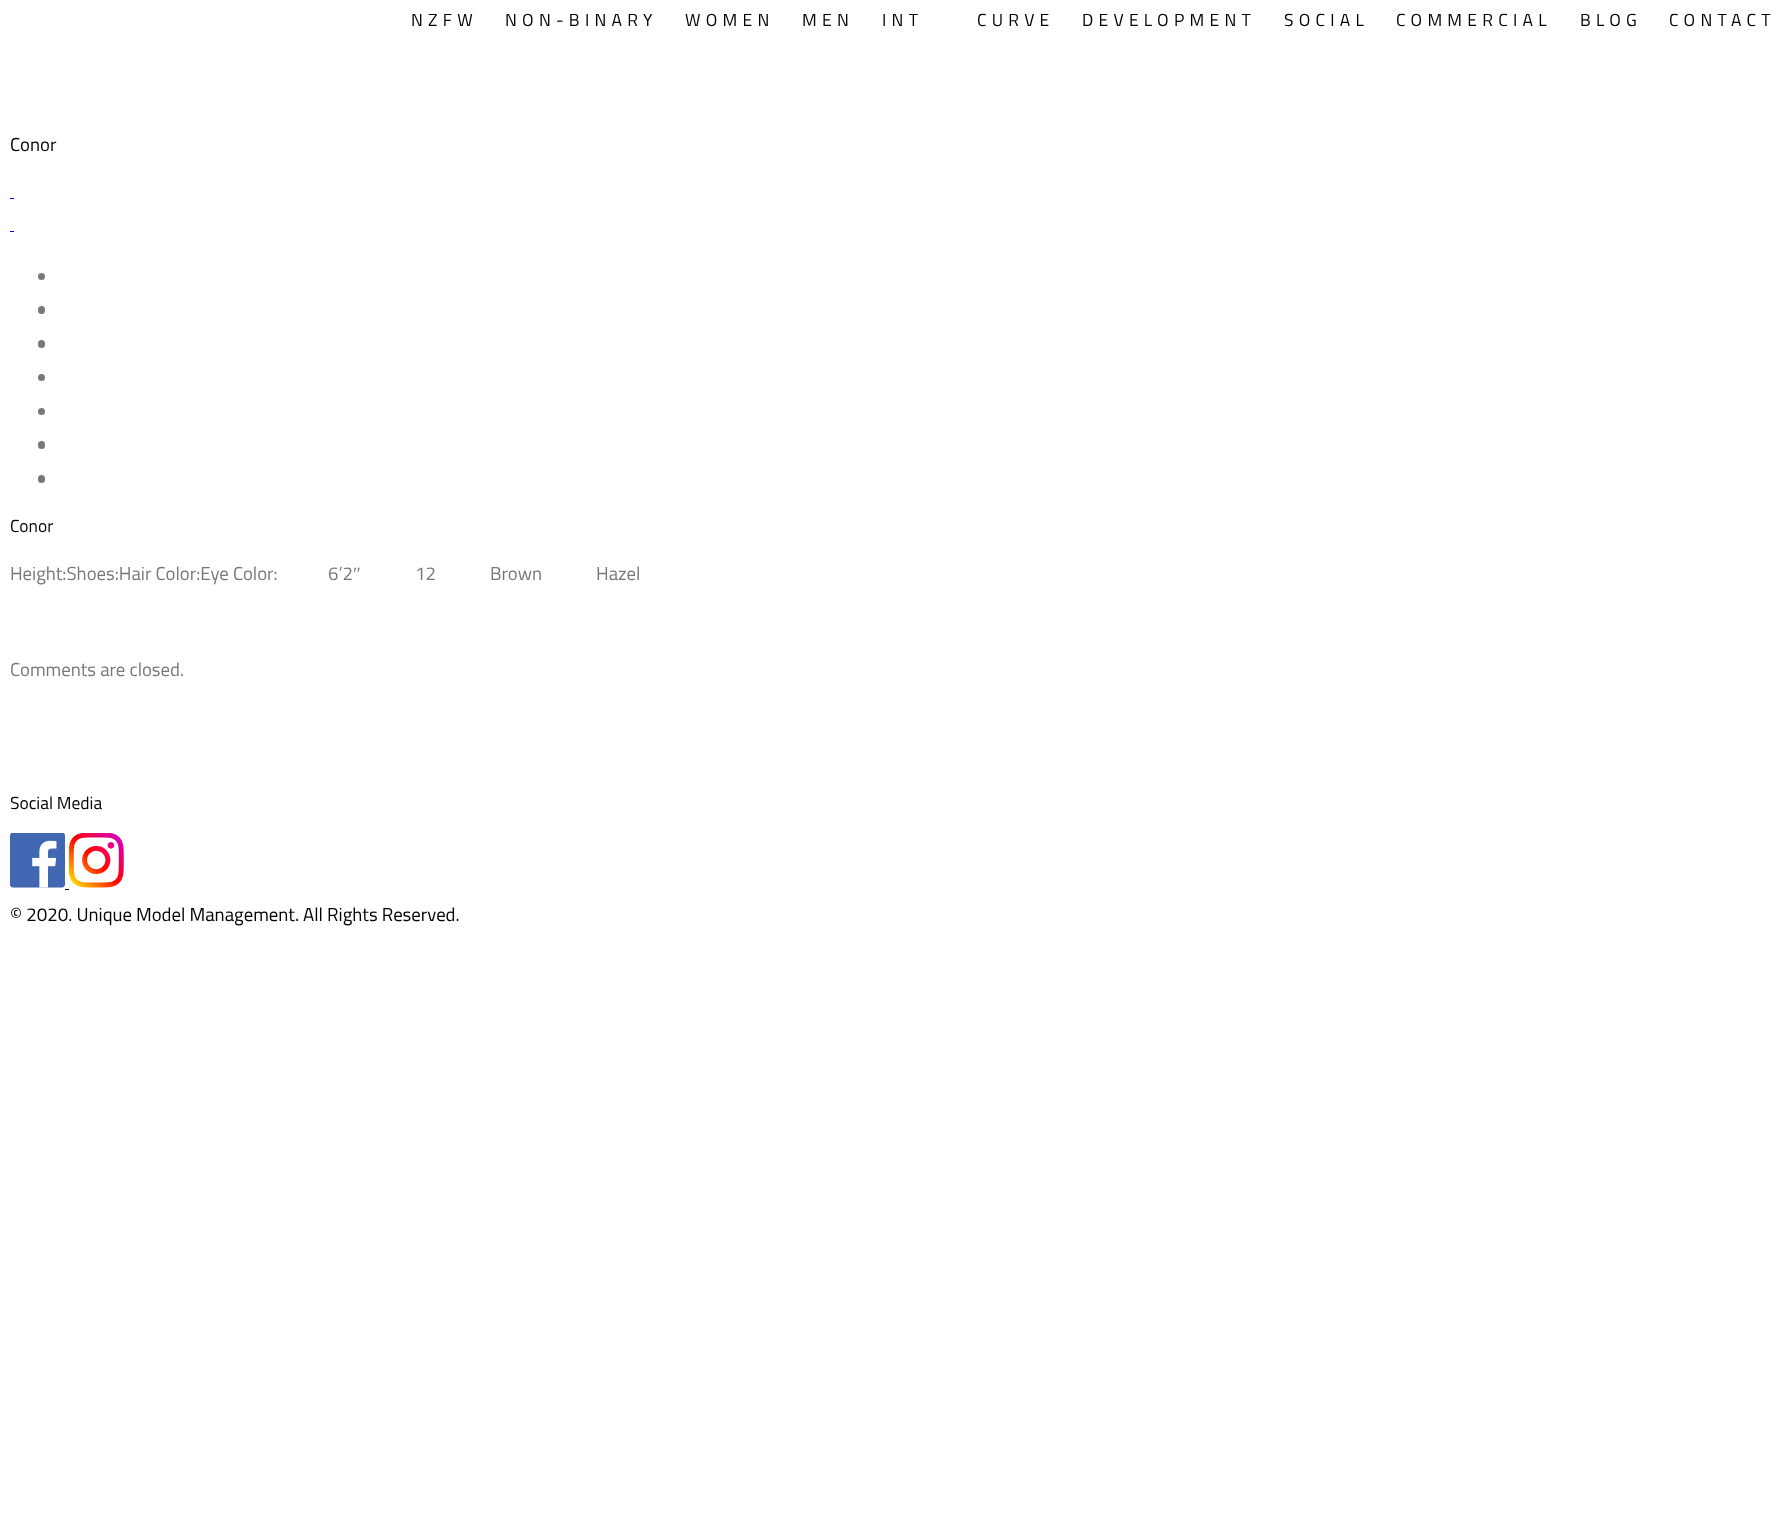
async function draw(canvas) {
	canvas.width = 1780;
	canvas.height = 1529;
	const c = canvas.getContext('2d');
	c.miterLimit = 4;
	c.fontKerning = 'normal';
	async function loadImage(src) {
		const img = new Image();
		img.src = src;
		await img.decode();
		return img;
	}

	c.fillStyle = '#fff';
	c.fillRect(0, 0, 1780, 1529);
	c.letterSpacing = '5.25px';
	c.font = '17.5px Titillium Web';
	c.fillStyle = '#000';
	for (const [text, x, y] of [
		['NZFW', 411, 26],
		['NON-BINARY', 505, 26],
		['WOMEN', 685, 26],
		['MEN', 802, 26],
		['INT', 882, 26],
		['CURVE', 977, 26],
		['DEVELOPMENT', 1082, 26],
		['SOCIAL', 1284, 26],
		['COMMERCIAL', 1396, 26],
		['BLOG', 1580, 26],
		['CONTACT', 1669, 26],
	]) {
		c.fillText(text, x, y);
	}
	c.letterSpacing = '0px';
	c.font = '18.75px Titillium Web';
	c.fillText('Conor', 10, 151);
	c.fillStyle = '#00e';
	c.fillRect(10, 198, 4, 1);
	c.fillRect(10, 231, 4, 1);
	c.fillStyle = '#787878';
	c.beginPath();
	c.arc(41.5, 276.5, 3.5, 0, 2 * Math.PI);
	c.fill();
	c.beginPath();
	c.roundRect(38, 306, 7, 8, 3.5);
	c.fill();
	c.beginPath();
	c.roundRect(38, 340, 7, 8, 3.5);
	c.fill();
	c.beginPath();
	c.arc(41.5, 377.5, 3.5, 0, 2 * Math.PI);
	c.fill();
	c.beginPath();
	c.arc(41.5, 411.5, 3.5, 0, 2 * Math.PI);
	c.fill();
	c.beginPath();
	c.roundRect(38, 441, 7, 8, 3.5);
	c.fill();
	c.beginPath();
	c.roundRect(38, 475, 7, 8, 3.5);
	c.fill();
	c.font = '17.5px Titillium Web';
	c.fillStyle = '#000';
	c.fillText('Conor', 10, 532);
	c.font = '18.75px Titillium Web';
	c.fillStyle = '#787878';
	c.fillText('Height:Shoes:Hair Color:Eye Color:', 10, 580);
	c.fillText('6’2', 328, 580);
	c.font = '18.75px Liberation Serif';
	c.fillText('″', 353, 580);
	c.font = '18.75px Titillium Web';
	for (const [text, x, y] of [
		['12', 415, 580],
		['Brown', 490, 580],
		['Hazel', 596, 580],
		['Comments are closed.', 10, 676],
	]) {
		c.fillText(text, x, y);
	}
	c.font = '17.5px Titillium Web';
	c.fillStyle = '#000';
	c.fillText('Social Media', 10, 809);
	c.drawImage(await loadImage('img1.png'), 10, 833, 55, 55);
	c.fillRect(65, 889, 4, 1);
	c.drawImage(await loadImage('img2.png'), 69, 833, 55, 55);
	c.font = '18.75px Titillium Web';
	c.fillText('© 2020. Unique Model Management. All Rights Reserved.', 10, 921);
}

draw(document.querySelector('canvas'));
